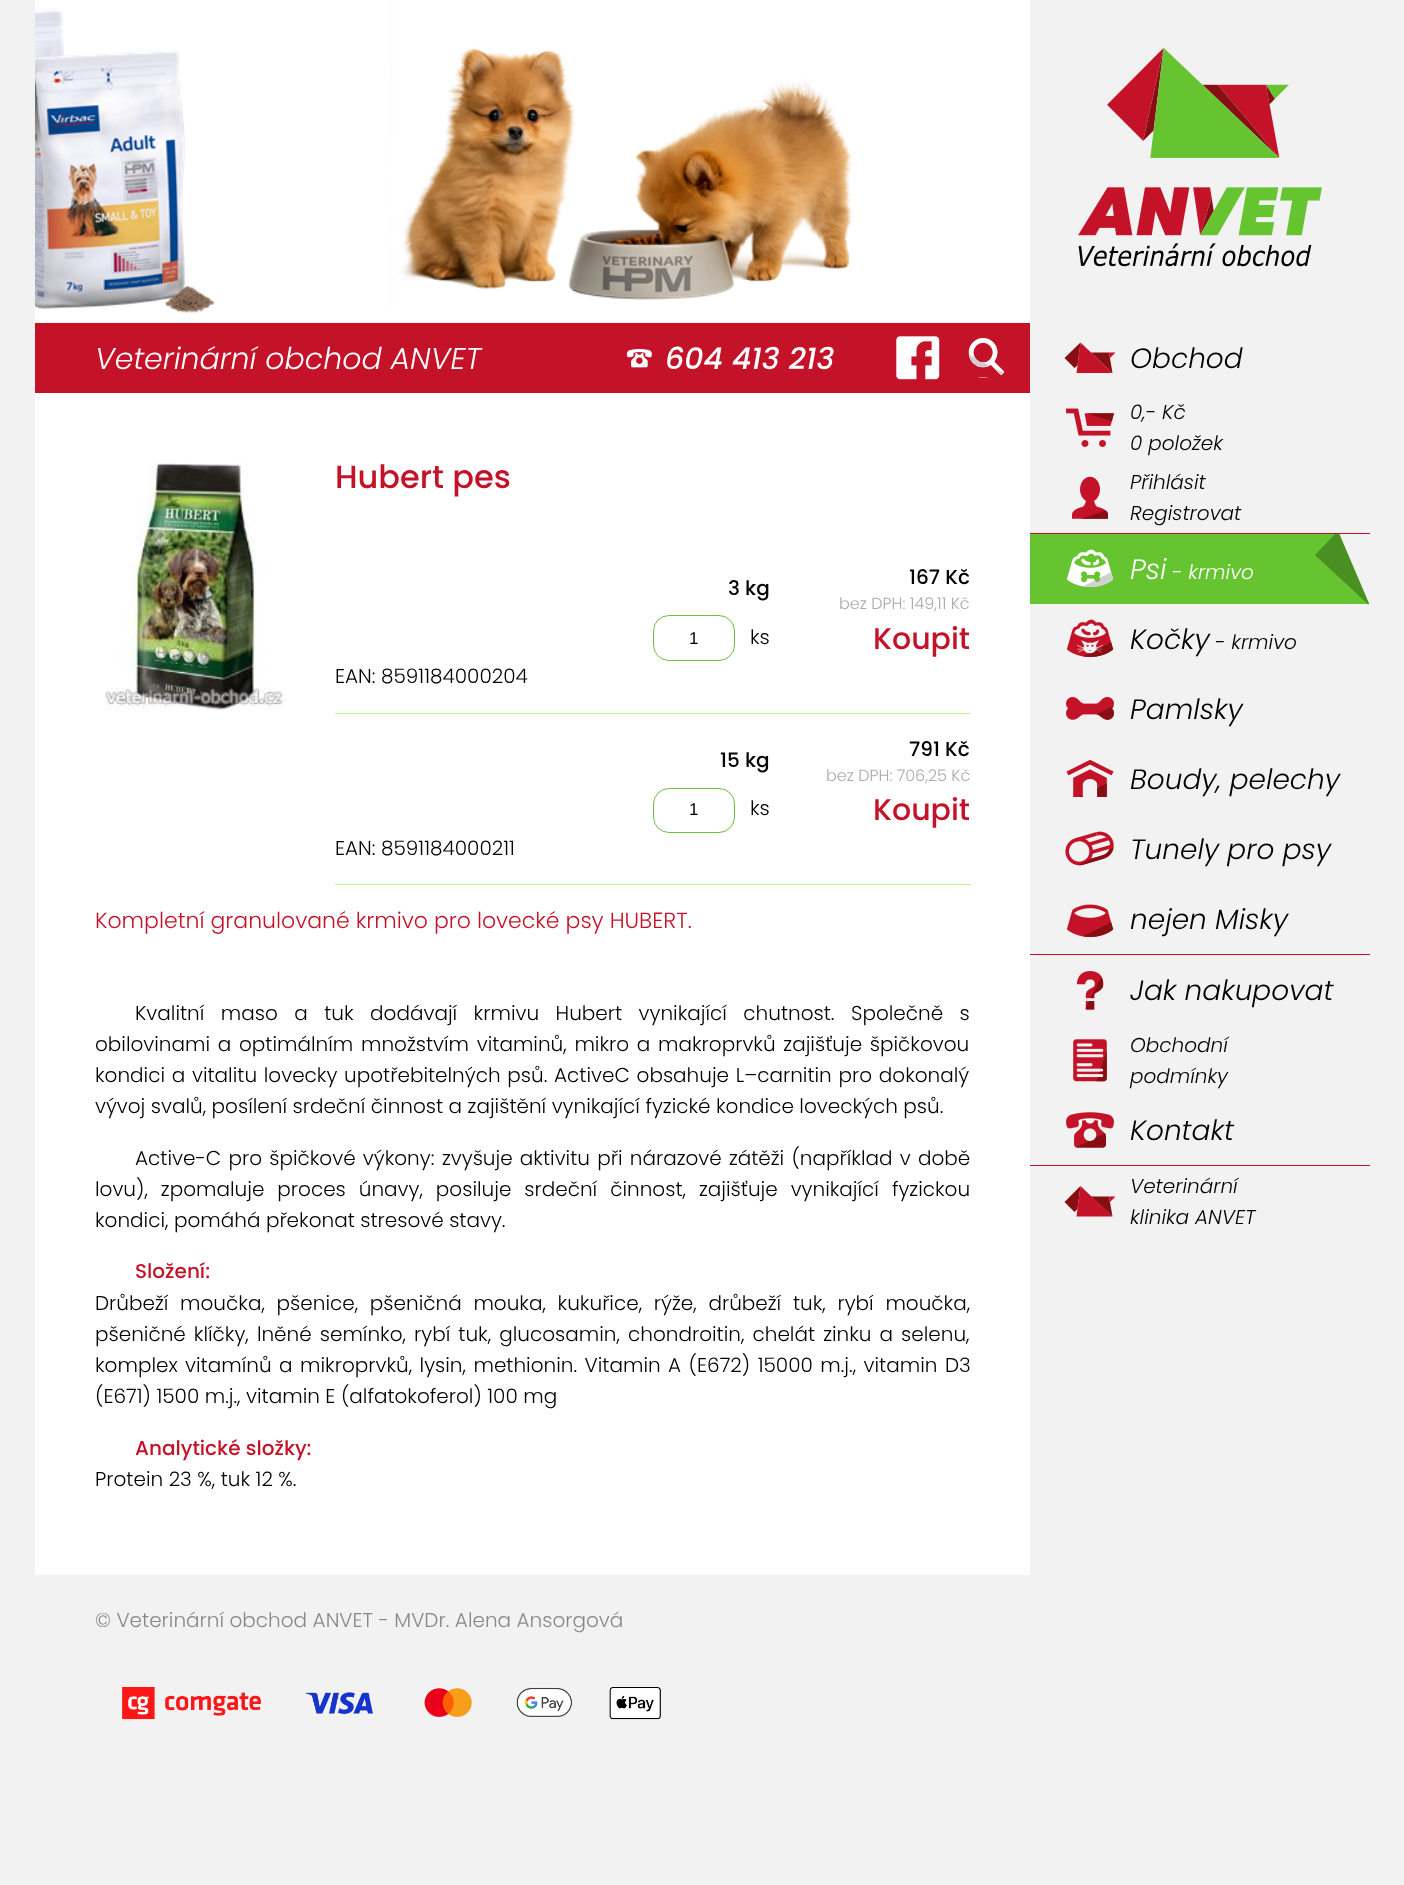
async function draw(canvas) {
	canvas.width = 1404;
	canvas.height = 1885;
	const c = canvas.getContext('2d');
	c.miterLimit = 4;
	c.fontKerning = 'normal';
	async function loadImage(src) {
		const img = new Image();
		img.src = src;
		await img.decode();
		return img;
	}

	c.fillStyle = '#f2f2f2';
	c.fillRect(0, 0, 1404, 1885);
	c.drawImage(await loadImage('img1.png'), 35, 0, 995, 323);
	c.drawImage(await loadImage('img2.png'), 1078, 47, 244, 220);
	c.fillStyle = '#c41329';
	c.fillRect(35, 323, 995, 70);
	c.font = 'italic 300 30px Poppins';
	c.fillStyle = '#fff';
	c.fillText('Veterinární obchod ANVET', 95, 369);
	c.drawImage(await loadImage('img3.png'), 626, 348, 26, 20);
	c.font = 'italic 500 30px Poppins';
	c.fillText('604 413 213', 665, 369);
	c.drawImage(await loadImage('img4.png'), 896, 336, 44, 44);
	c.drawImage(await loadImage('img5.png'), 968, 338, 36, 40);
	c.fillStyle = '#870e12';
	c.beginPath();
	c.moveTo(1109, 352.5);
	c.lineTo(1112.5, 373);
	c.lineTo(1091, 352.5);
	c.closePath();
	c.moveTo(1080.5, 342.5);
	c.lineTo(1064.5, 358);
	c.lineTo(1074.5, 368);
	c.lineTo(1077.5, 365.5);
	c.closePath();
	c.fill();
	c.fillStyle = '#c41329';
	c.beginPath();
	c.moveTo(1109, 352.5);
	c.lineTo(1115.5, 352.5);
	c.lineTo(1110, 358);
	c.closePath();
	c.fill();
	c.beginPath();
	c.moveTo(1112.5, 373);
	c.lineTo(1076.5, 373);
	c.lineTo(1080.5, 342.5);
	c.closePath();
	c.fill();
	c.font = 'italic 300 28px Poppins';
	c.fillStyle = '#000';
	c.fillText('Obchod', 1130, 368);
	c.drawImage(await loadImage('img6.png'), 1066, 408, 48, 39);
	c.font = 'italic 300 20px Poppins';
	c.fillText('0,- Kč', 1130, 419);
	c.fillText('0 položek', 1130, 450);
	c.drawImage(await loadImage('img7.png'), 1072, 476, 36, 43);
	c.fillText('Přihlásit', 1130, 489);
	c.fillText('Registrovat', 1130, 520);
	c.fillStyle = '#c41329';
	c.fillRect(1030, 533, 340, 1);
	c.save();
	c.beginPath();
	c.rect(1030, 534, 340, 70);
	c.clip();
	c.fillStyle = '#66c430';
	c.beginPath();
	c.moveTo(932, 531);
	c.lineTo(932, 606);
	c.lineTo(1370, 606);
	c.lineTo(1338, 531);
	c.closePath();
	c.fill();
	c.fillStyle = '#498f21';
	c.beginPath();
	c.moveTo(1370, 606);
	c.lineTo(1338, 531);
	c.lineTo(1315, 555);
	c.closePath();
	c.fill();
	c.restore();
	c.drawImage(await loadImage('img8.png'), 1066, 549, 48, 38);
	c.font = 'italic 300 28px Poppins';
	c.fillStyle = '#fff';
	c.fillText('Psi', 1130, 579);
	c.font = 'italic 300 20px Poppins';
	c.fillText('- krmivo', 1172, 579);
	c.drawImage(await loadImage('img9.png'), 1066, 619, 48, 38);
	c.font = 'italic 300 28px Poppins';
	c.fillStyle = '#000';
	c.fillText('Kočky', 1130, 649);
	c.font = 'italic 300 20px Poppins';
	c.fillText('- krmivo', 1215, 649);
	c.drawImage(await loadImage('img10.png'), 1066, 697, 48, 23);
	c.font = 'italic 300 28px Poppins';
	c.fillText('Pamlsky', 1130, 719);
	c.drawImage(await loadImage('img11.png'), 1066, 759, 48, 38);
	c.fillText('Boudy, pelechy', 1130, 789);
	c.drawImage(await loadImage('img12.png'), 1065, 831, 49, 35);
	c.fillText('Tunely pro psy', 1130, 859);
	c.drawImage(await loadImage('img13.png'), 1066, 904, 48, 33);
	c.fillText('nejen Misky', 1130, 929);
	c.fillStyle = '#c41329';
	c.fillRect(1030, 954, 340, 1);
	c.drawImage(await loadImage('img14.png'), 1076, 971, 28, 39);
	c.fillStyle = '#000';
	c.fillText('Jak nakupovat', 1130, 1000);
	c.drawImage(await loadImage('img15.png'), 1073, 1039, 34, 43);
	c.font = 'italic 300 20px Poppins';
	c.fillText('Obchodní', 1130, 1052);
	c.fillText('podmínky', 1130, 1083);
	c.drawImage(await loadImage('img16.png'), 1066, 1112, 48, 36);
	c.font = 'italic 300 28px Poppins';
	c.fillText('Kontakt', 1130, 1140);
	c.fillStyle = '#c41329';
	c.fillRect(1030, 1165, 340, 1);
	c.fillStyle = '#870e12';
	c.beginPath();
	c.moveTo(1109, 1196.5);
	c.lineTo(1112.5, 1216.5);
	c.lineTo(1091, 1196.5);
	c.closePath();
	c.moveTo(1080.5, 1186);
	c.lineTo(1064.5, 1202);
	c.lineTo(1074.5, 1212);
	c.lineTo(1077.5, 1209);
	c.closePath();
	c.fill();
	c.fillStyle = '#c41329';
	c.beginPath();
	c.moveTo(1109, 1196.5);
	c.lineTo(1115.5, 1196.5);
	c.lineTo(1110, 1202);
	c.closePath();
	c.fill();
	c.beginPath();
	c.moveTo(1112.5, 1216.5);
	c.lineTo(1076.5, 1216.5);
	c.lineTo(1080.5, 1186);
	c.closePath();
	c.fill();
	c.font = 'italic 300 20px Poppins';
	c.fillStyle = '#000';
	c.fillText('Veterinární', 1130, 1193);
	c.fillText('klinika ANVET', 1130, 1224);
	c.fillStyle = '#fff';
	c.fillRect(35, 393, 995, 1182);
	c.drawImage(await loadImage('img17.png'), 105, 463, 182, 247);
	c.font = '500 32px Poppins';
	c.fillStyle = '#c41329';
	c.fillText('Hubert pes', 335, 488);
	c.fillStyle = '#c0f090';
	c.fillRect(335, 713, 635, 1);
	c.font = '500 20px Poppins';
	c.fillStyle = '#000';
	c.fillText('3 kg', 728, 595);
	c.fillText('167 Kč', 909, 584);
	c.font = '300 16px Poppins';
	c.fillStyle = '#aaa';
	c.fillText('bez DPH: 149,11 Kč', 839, 609);
	c.beginPath();
	c.roundRect(653.5, 615.5, 81, 45, 15.5);
	c.strokeStyle = '#71bf44';
	c.stroke();
	c.font = '17px Liberation Sans';
	c.fillStyle = '#000';
	c.fillText('1', 689, 644);
	c.font = '300 20px Poppins';
	c.fillText('ks', 750, 644);
	c.font = '500 30px Poppins';
	c.fillStyle = '#c41329';
	c.fillText('Koupit', 873, 649);
	c.font = '300 20px Poppins';
	c.fillStyle = '#000';
	c.fillText('EAN: 8591184000204', 335, 683);
	c.fillStyle = '#c0f090';
	c.fillRect(335, 884, 635, 1);
	c.font = '500 20px Poppins';
	c.fillStyle = '#000';
	c.fillText('15 kg', 720, 767);
	c.fillText('791 Kč', 909, 756);
	c.font = '300 16px Poppins';
	c.fillStyle = '#aaa';
	c.fillText('bez DPH: 706,25 Kč', 826, 781);
	c.beginPath();
	c.roundRect(653.5, 788.5, 81, 44, 15.5);
	c.stroke();
	c.font = '17px Liberation Sans';
	c.fillStyle = '#000';
	c.fillText('1', 689, 815);
	c.font = '300 20px Poppins';
	c.fillText('ks', 750, 815);
	c.font = '500 30px Poppins';
	c.fillStyle = '#c41329';
	c.fillText('Koupit', 873, 820);
	c.font = '300 20px Poppins';
	c.fillStyle = '#000';
	c.fillText('EAN: 8591184000211', 335, 855);
	c.font = '300 22px Poppins';
	c.fillStyle = '#c41329';
	c.fillText('Kompletní granulované krmivo pro lovecké psy HUBERT.', 95, 928);
	c.wordSpacing = '11px';
	c.font = '300 20px Poppins';
	c.fillStyle = '#000';
	c.fillText('Kvalitní maso a tuk dodávají krmivu Hubert vynikající chutnost. Společně s', 135, 1020);
	c.wordSpacing = '2.25px';
	c.fillText('obilovinami a optimálním množstvím vitaminů, mikro a makroprvků zajišťuje špičkovou', 95, 1051);
	c.wordSpacing = '1.25px';
	c.fillText('kondici a vitalitu lovecky upotřebitelných psů. ActiveC obsahuje L–carnitin pro dokonalý', 95, 1082);
	c.wordSpacing = '0px';
	c.fillText('vývoj svalů, posílení srdeční činnost a zajištění vynikající fyzické kondice loveckých psů.', 95, 1113);
	c.wordSpacing = '1.75px';
	c.fillText('Active-C pro špičkové výkony:', 135, 1165);
	c.fillText('zvyšuje aktivitu při nárazové zátěži (například v době', 442, 1165);
	c.wordSpacing = '7.5px';
	c.fillText('lovu), zpomaluje proces únavy, posiluje srdeční činnost, zajišťuje vynikající fyzickou', 95, 1196);
	c.wordSpacing = '0px';
	c.fillText('kondici, pomáhá překonat stresové stavy.', 95, 1227);
	c.font = '500 20px Poppins';
	c.fillStyle = '#c41329';
	c.fillText('Složení:', 135, 1278);
	c.wordSpacing = '6.25px';
	c.font = '300 20px Poppins';
	c.fillStyle = '#000';
	c.fillText('Drůbeží moučka, pšenice, pšeničná mouka, kukuřice, rýže, drůbeží tuk, rybí moučka,', 95, 1310);
	c.wordSpacing = '2.6px';
	c.fillText('pšeničné klíčky, lněné semínko, rybí tuk, glucosamin, chondroitin, chelát zinku a selenu,', 95, 1341);
	c.wordSpacing = '2px';
	c.fillText('komplex vitamínů a mikroprvků, lysin, methionin. Vitamin A (E672) 15000 m.j., vitamin D3', 95, 1372);
	c.wordSpacing = '0px';
	c.fillText('(E671) 1500 m.j., vitamin E (alfatokoferol) 100 mg', 95, 1403);
	c.font = '500 20px Poppins';
	c.fillStyle = '#c41329';
	c.fillText('Analytické složky:', 135, 1455);
	c.font = '300 20px Poppins';
	c.fillStyle = '#000';
	c.fillText('Protein 23 %, tuk 12 %.', 95, 1486);
	c.fillStyle = '#888';
	c.fillText('© Veterinární obchod ANVET - MVDr. Alena Ansorgová', 95, 1627);
	c.drawImage(await loadImage('img18.png'), 122, 1687, 539, 33);
}

draw(document.querySelector('canvas'));
